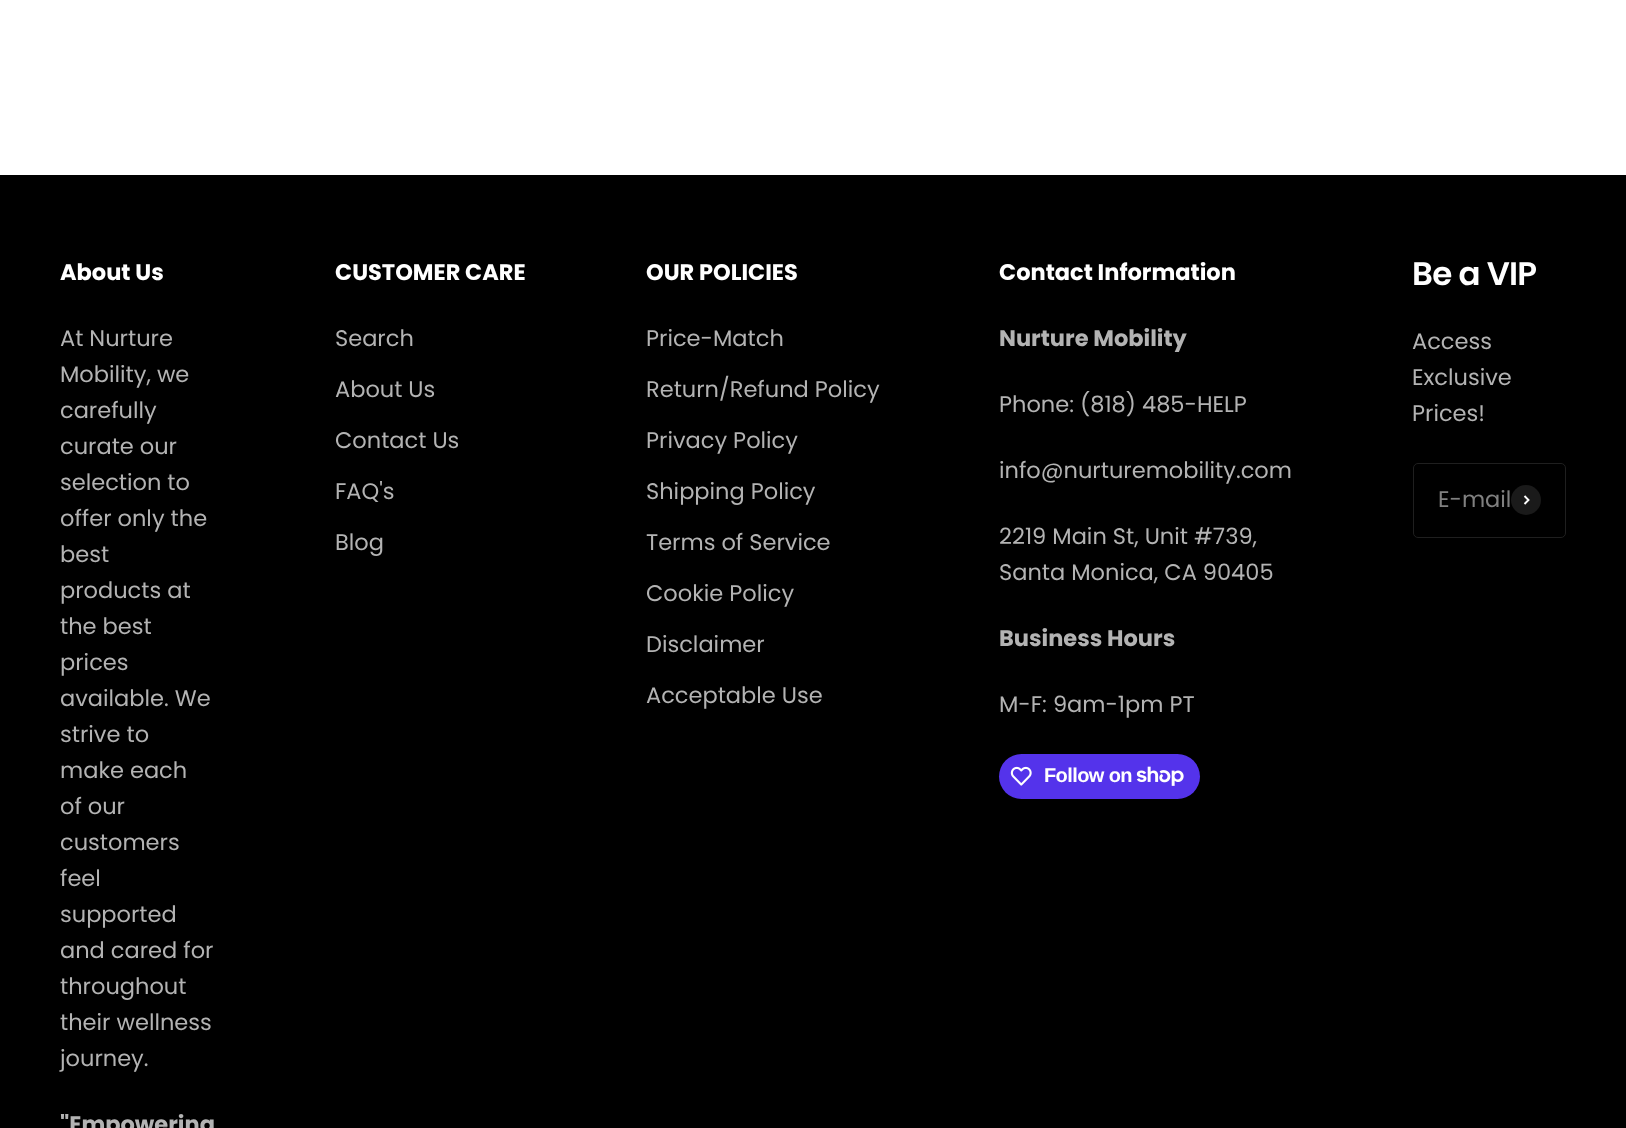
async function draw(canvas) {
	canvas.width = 1626;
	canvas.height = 1128;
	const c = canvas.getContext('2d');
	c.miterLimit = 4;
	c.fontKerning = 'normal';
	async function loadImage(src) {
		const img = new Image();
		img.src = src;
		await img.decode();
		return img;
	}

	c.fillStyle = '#fff';
	c.fillRect(0, 0, 1626, 1128);
	c.fillStyle = '#000';
	c.fillRect(0, 175, 1626, 953);
	c.font = 'bold 22.5px Poppins';
	c.fillStyle = '#fff';
	c.fillText('About Us', 60, 280);
	c.font = '22.5px Poppins';
	c.fillStyle = '#b3b3b3';
	for (const [text, x, y] of [
		['At Nurture', 60, 346],
		['Mobility, we', 60, 382],
		['carefully', 60, 418],
		['curate our', 60, 454],
		['selection to', 60, 490],
		['offer only the', 60, 526],
		['best', 60, 562],
		['products at', 60, 598],
		['the best', 60, 634],
		['prices', 60, 670],
		['available. We', 60, 706],
		['strive to', 60, 742],
		['make each', 60, 778],
		['of our', 60, 814],
		['customers', 60, 850],
		['feel', 60, 886],
		['supported', 60, 922],
		['and cared for', 60, 958],
		['throughout', 60, 994],
		['their wellness', 60, 1030],
		['journey.', 60, 1066],
	]) {
		c.fillText(text, x, y);
	}
	c.font = 'bold 22.5px Poppins';
	c.fillText('"Empowering', 60, 1132);
	c.fillStyle = '#fff';
	c.fillText('CUSTOMER CARE', 335, 280);
	c.font = '22.5px Poppins';
	c.fillStyle = '#b3b3b3';
	for (const [text, x, y] of [
		['Search', 335, 346],
		['About Us', 335, 397],
		['Contact Us', 335, 448],
		['FAQ\'s', 335, 499],
		['Blog', 335, 550],
	]) {
		c.fillText(text, x, y);
	}
	c.font = 'bold 22.5px Poppins';
	c.fillStyle = '#fff';
	c.fillText('OUR POLICIES', 646, 280);
	c.font = '22.5px Poppins';
	c.fillStyle = '#b3b3b3';
	for (const [text, x, y] of [
		['Price-Match', 646, 346],
		['Return/Refund Policy', 646, 397],
		['Privacy Policy', 646, 448],
		['Shipping Policy', 646, 499],
		['Terms of Service', 646, 550],
		['Cookie Policy', 646, 601],
		['Disclaimer', 646, 652],
		['Acceptable Use', 646, 703],
	]) {
		c.fillText(text, x, y);
	}
	c.font = 'bold 22.5px Poppins';
	c.fillStyle = '#fff';
	c.fillText('Contact Information', 999, 280);
	c.fillStyle = '#b3b3b3';
	c.fillText('Nurture Mobility', 999, 346);
	c.font = '22.5px Poppins';
	for (const [text, x, y] of [
		['Phone: (818) 485-HELP', 999, 412],
		['info@nurturemobility.com', 999, 478],
		['2219 Main St, Unit #739,', 999, 544],
		['Santa Monica, CA 90405', 999, 580],
	]) {
		c.fillText(text, x, y);
	}
	c.font = 'bold 22.5px Poppins';
	c.fillText('Business Hours', 999, 646);
	c.font = '22.5px Poppins';
	c.fillText('M-F: 9am-1pm PT', 999, 712);
	c.fillStyle = '#5433eb';
	c.beginPath();
	c.roundRect(999, 754, 201, 45, 22.5);
	c.fill();
	c.drawImage(await loadImage('img1.png'), 1010, 766, 22, 20);
	c.letterSpacing = '-0.6px';
	c.font = 'bold 20px Liberation Sans';
	c.fillStyle = '#fff';
	c.fillText('Follow on', 1044, 782);
	c.drawImage(await loadImage('img2.png'), 1136, 766, 48, 20);
	c.letterSpacing = '-0.75px';
	c.font = '600 32.5px Poppins';
	c.fillText('Be a VIP', 1412, 285);
	c.letterSpacing = '0px';
	c.font = '22.5px Poppins';
	c.fillStyle = '#b3b3b3';
	for (const [text, x, y] of [
		['Access', 1412, 349],
		['Exclusive', 1412, 385],
		['Prices!', 1412, 421],
	]) {
		c.fillText(text, x, y);
	}
	c.beginPath();
	c.roundRect(1413.5, 463.5, 152, 74, 4.5);
	c.strokeStyle = '#1f1f1f';
	c.stroke();
	c.fillStyle = '#808080';
	c.fillText('E-mail', 1438, 507);
	c.fillStyle = '#1a1a1a';
	c.beginPath();
	c.arc(1526, 500, 15, 0, 2 * Math.PI);
	c.fill();
	c.beginPath();
	c.moveTo(1524.5, 504);
	c.lineTo(1528.5, 500);
	c.lineTo(1524.5, 496);
	c.strokeStyle = '#fff';
	c.lineWidth = 1.9;
	c.stroke();
}

draw(document.querySelector('canvas'));
